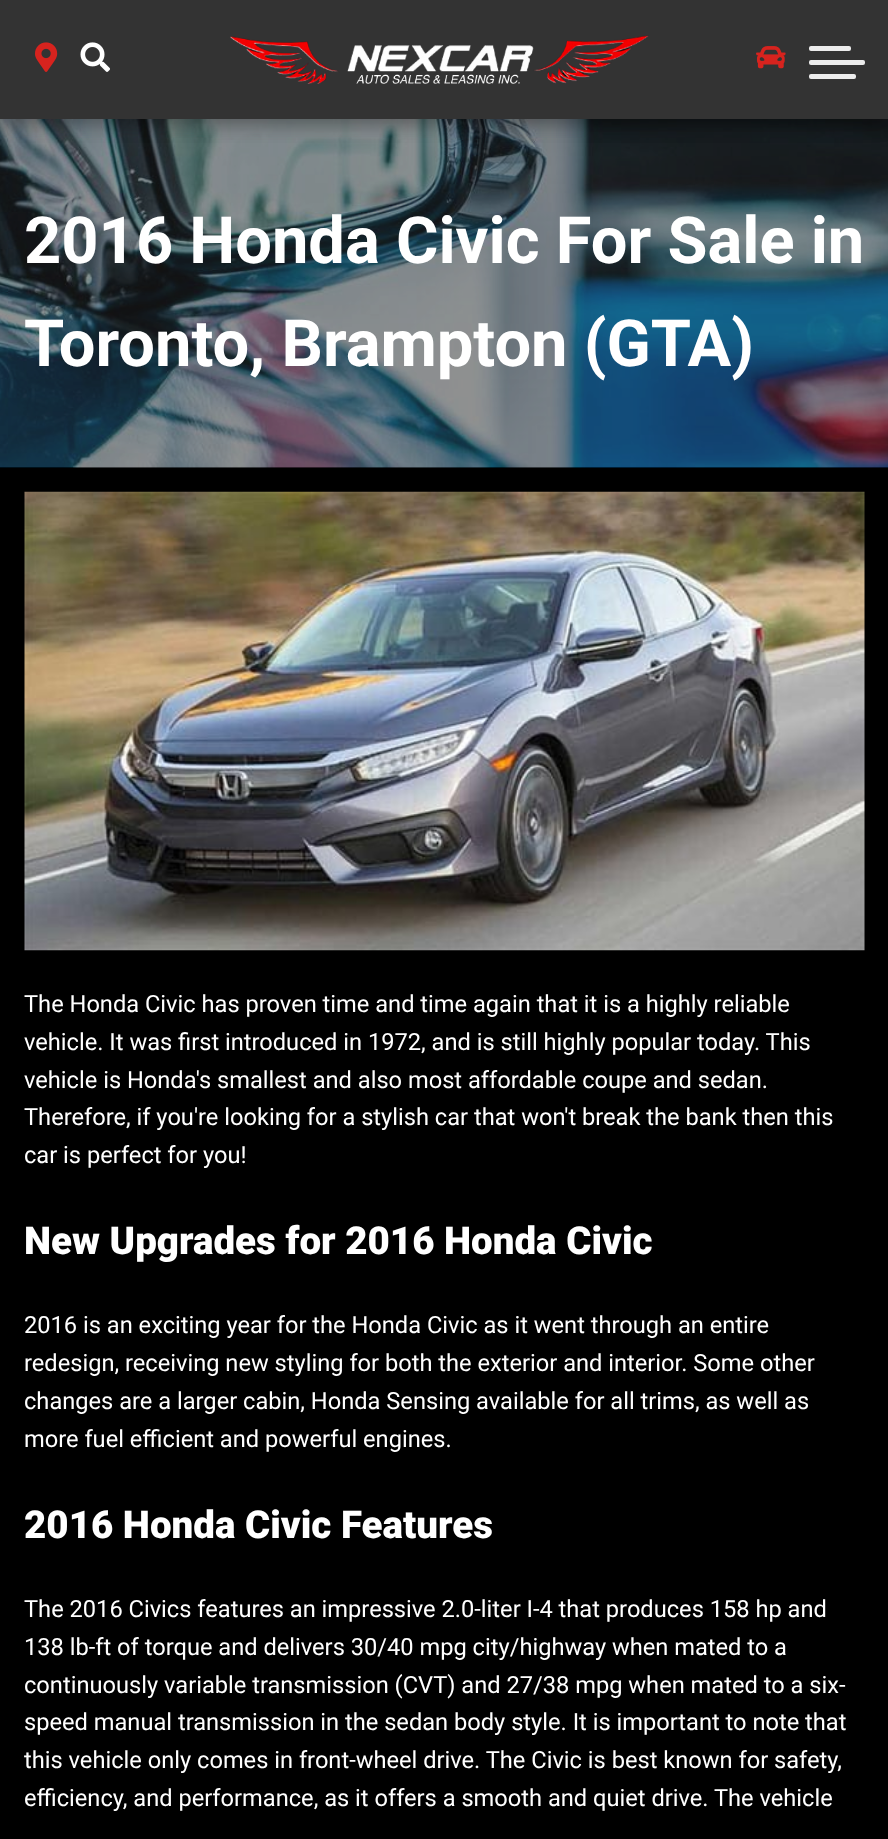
async function draw(canvas) {
	canvas.width = 888;
	canvas.height = 1839;
	const c = canvas.getContext('2d');
	c.miterLimit = 4;
	c.fontKerning = 'normal';
	async function loadImage(src) {
		const img = new Image();
		img.src = src;
		await img.decode();
		return img;
	}

	c.fillStyle = '#000';
	c.fillRect(0, 0, 888, 1839);
	c.drawImage(await loadImage('img5.png'), 0, 119, 888, 349);
	c.fillStyle = '#00000033';
	c.filter = 'blur(9px)';
	c.beginPath();
	c.rect(0, 5, 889, 119);
	c.fill();
	c.filter = 'none';
	c.filter = 'blur(9px)';
	c.beginPath();
	c.rect(0, 5, 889, 119);
	c.fill();
	c.filter = 'none';
	c.fillStyle = '#333';
	c.fillRect(0, 0, 888, 119);
	c.drawImage(await loadImage('img1.png'), 35, 42, 23, 30);
	c.drawImage(await loadImage('img2.png'), 80, 42, 30, 30);
	c.drawImage(await loadImage('img3.png'), 230, 35, 419, 49);
	c.drawImage(await loadImage('img4.png'), 756, 46, 30, 23);
	c.fillStyle = '#ececec';
	c.beginPath();
	c.roundRect(809, 60, 56, 5, 2);
	c.fill();
	c.beginPath();
	c.roundRect(809, 46, 42, 5, 2);
	c.fill();
	c.beginPath();
	c.roundRect(809, 74, 47, 5, 2);
	c.fill();
	c.font = 'bold 65px Roboto';
	c.fillStyle = '#fff';
	c.fillText('2016 Honda Civic For Sale in', 24, 263);
	c.fillText('Toronto, Brampton (GTA)', 24, 366);
	c.drawImage(await loadImage('img6.png'), 24, 491, 841, 460);
	c.font = '23.65px Roboto';
	for (const [text, x, y] of [
		['The Honda Civic has proven time and time again that it is a highly reliable', 24, 1012],
		['vehicle. It was first introduced in 1972, and is still highly popular today. This', 24, 1050],
		['vehicle is Honda\'s smallest and also most affordable coupe and sedan.', 24, 1088],
		['Therefore, if you\'re looking for a stylish car that won\'t break the bank then this', 24, 1125],
		['car is perfect for you!', 24, 1163],
	]) {
		c.fillText(text, x, y);
	}
	c.font = '900 38.5px Roboto';
	c.fillText('New Upgrades for 2016 Honda Civic', 24, 1254);
	c.font = '23.65px Roboto';
	for (const [text, x, y] of [
		['2016 is an exciting year for the Honda Civic as it went through an entire', 24, 1333],
		['redesign, receiving new styling for both the exterior and interior. Some other', 24, 1371],
		['changes are a larger cabin, Honda Sensing available for all trims, as well as', 24, 1409],
		['more fuel efficient and powerful engines.', 24, 1447],
	]) {
		c.fillText(text, x, y);
	}
	c.font = '900 38.5px Roboto';
	c.fillText('2016 Honda Civic Features', 24, 1538);
	c.font = '23.65px Roboto';
	for (const [text, x, y] of [
		['The 2016 Civics features an impressive 2.0-liter I-4 that produces 158 hp and', 24, 1617],
		['138 lb-ft of torque and delivers 30/40 mpg city/highway when mated to a', 24, 1655],
		['continuously variable transmission (CVT) and 27/38 mpg when mated to a six-', 24, 1693],
		['speed manual transmission in the sedan body style. It is important to note that', 24, 1730],
		['this vehicle only comes in front-wheel drive. The Civic is best known for safety,', 24, 1768],
		['efficiency, and performance, as it offers a smooth and quiet drive. The vehicle', 24, 1806],
	]) {
		c.fillText(text, x, y);
	}
}

draw(document.querySelector('canvas'));
